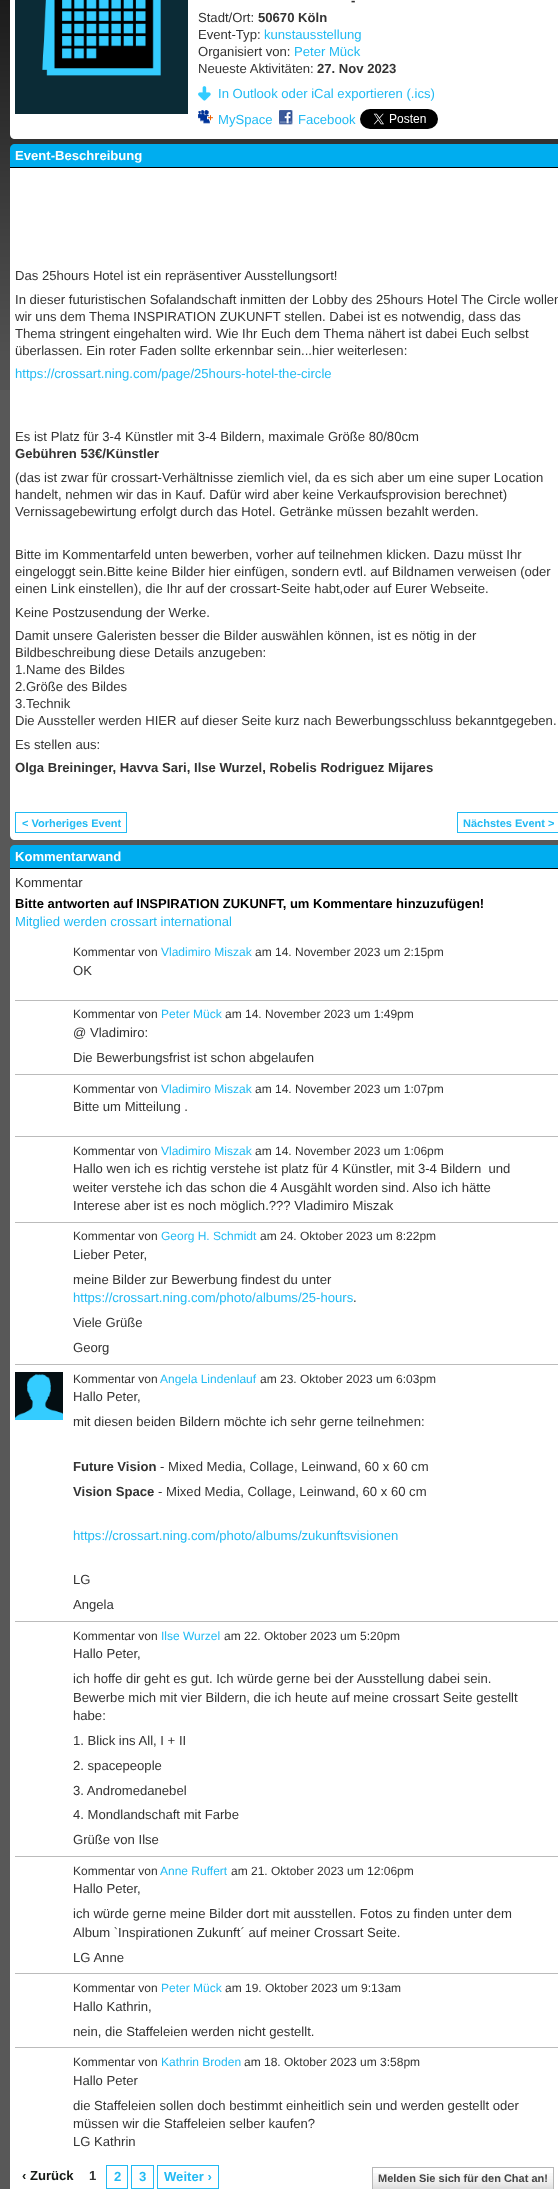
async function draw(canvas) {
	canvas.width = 558;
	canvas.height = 2189;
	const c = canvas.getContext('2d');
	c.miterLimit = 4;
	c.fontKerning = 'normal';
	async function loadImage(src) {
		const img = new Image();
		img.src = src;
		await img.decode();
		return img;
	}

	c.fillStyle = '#585858';
	c.fillRect(0, 0, 558, 2189);
	c.drawImage(await loadImage('img1.png'), 0, 0, 558, 390);
	c.fillStyle = '#fff';
	c.beginPath();
	c.moveTo(10, -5);
	c.lineTo(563, -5);
	c.lineTo(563, 134);
	c.bezierCurveTo(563, 137, 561, 139, 558, 139);
	c.lineTo(15, 139);
	c.bezierCurveTo(12, 139, 10, 137, 10, 134);
	c.closePath();
	c.fill();
	c.drawImage(await loadImage('img2.png'), 15, 0, 173, 114);
	c.font = 'bold 13.1px Liberation Sans';
	c.fillStyle = '#333';
	c.fillText('-', 351, 5);
	c.font = '13.1px Liberation Sans';
	c.fillText('Stadt/Ort:', 198, 22);
	c.font = 'bold 13.1px Liberation Sans';
	c.fillText('50670 Köln', 258, 22);
	c.font = '13.1px Liberation Sans';
	c.fillText('Event-Typ:', 198, 39);
	c.fillStyle = '#21baf3';
	c.fillText('kunstausstellung', 264, 39);
	c.fillStyle = '#333';
	c.fillText('Organisiert von:', 198, 56);
	c.fillStyle = '#21baf3';
	c.fillText('Peter Mück', 294, 56);
	c.fillStyle = '#333';
	c.fillText('Neueste Aktivitäten:', 198, 73);
	c.font = 'bold 13.1px Liberation Sans';
	c.fillText('27. Nov 2023', 317, 73);
	c.drawImage(await loadImage('img3.png'), 198, 86, 13, 15);
	c.font = '13.1px Liberation Sans';
	c.fillStyle = '#21baf3';
	c.fillText('In Outlook oder iCal exportieren (.ics)', 218, 98);
	c.drawImage(await loadImage('img4.png'), 198, 110, 15, 14);
	c.fillText('MySpace', 218, 124);
	c.drawImage(await loadImage('img5.png'), 279, 110, 14, 15);
	c.fillText('Facebook', 298, 124);
	c.drawImage(await loadImage('img6.png'), 360, 109, 78, 20);
	c.fillStyle = '#00adef';
	c.beginPath();
	c.moveTo(15, 144);
	c.lineTo(558, 144);
	c.bezierCurveTo(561, 144, 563, 146, 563, 149);
	c.lineTo(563, 168);
	c.lineTo(10, 168);
	c.lineTo(10, 149);
	c.bezierCurveTo(10, 146, 12, 144, 15, 144);
	c.closePath();
	c.fill();
	c.fillStyle = '#000';
	c.fillRect(10, 167, 548, 1);
	c.font = 'bold 13.1px Liberation Sans';
	c.fillStyle = '#fff';
	c.fillText('Event-Beschreibung', 15, 160);
	c.beginPath();
	c.moveTo(10, 168);
	c.lineTo(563, 168);
	c.lineTo(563, 835);
	c.bezierCurveTo(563, 838, 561, 840, 558, 840);
	c.lineTo(15, 840);
	c.bezierCurveTo(12, 840, 10, 838, 10, 835);
	c.closePath();
	c.fill();
	c.font = '13.1px Liberation Sans';
	c.fillStyle = '#333';
	for (const [text, x, y] of [
		['Das 25hours Hotel ist ein repräsentiver Ausstellungsort!', 15, 280],
		['In dieser futuristischen Sofalandschaft inmitten der Lobby des 25hours Hotel The Circle wollen', 15, 304],
		['wir uns dem Thema INSPIRATION ZUKUNFT stellen. Dabei ist es notwendig, dass das', 15, 321],
		['Thema stringent eingehalten wird. Wie Ihr Euch dem Thema nähert ist dabei Euch selbst', 15, 338],
		['überlassen. Ein roter Faden sollte erkennbar sein...hier weiterlesen:', 15, 355],
	]) {
		c.fillText(text, x, y);
	}
	c.fillStyle = '#21baf3';
	c.fillText('https://crossart.ning.com/page/25hours-hotel-the-circle', 15, 378);
	c.fillStyle = '#333';
	c.fillText('Es ist Platz für 3-4 Künstler mit 3-4 Bildern, maximale Größe 80/80cm', 15, 441);
	c.font = 'bold 13.1px Liberation Sans';
	c.fillText('Gebühren 53€/Künstler', 15, 458);
	c.font = '13.1px Liberation Sans';
	for (const [text, x, y] of [
		['(das ist zwar für crossart-Verhältnisse ziemlich viel, da es sich aber um eine super Location', 15, 482],
		['handelt, nehmen wir das in Kauf. Dafür wird aber keine Verkaufsprovision berechnet)', 15, 499],
		['Vernissagebewirtung erfolgt durch das Hotel. Getränke müssen bezahlt werden.', 15, 516],
		['Bitte im Kommentarfeld unten bewerben, vorher auf teilnehmen klicken. Dazu müsst Ihr', 15, 559],
		['eingeloggt sein.Bitte keine Bilder hier einfügen, sondern evtl. auf Bildnamen verweisen (oder', 15, 576],
		['einen Link einstellen), die Ihr auf der crossart-Seite habt,oder auf Eurer Webseite.', 15, 593],
		['Keine Postzusendung der Werke.', 15, 617],
		['Damit unsere Galeristen besser die Bilder auswählen können, ist es nötig in der', 15, 640],
		['Bildbeschreibung diese Details anzugeben:', 15, 657],
		['1.Name des Bildes', 15, 674],
		['2.Größe des Bildes', 15, 691],
		['3.Technik', 15, 708],
		['Die Aussteller werden HIER auf dieser Seite kurz nach Bewerbungsschluss bekanntgegeben.', 15, 725],
		['Es stellen aus:', 15, 749],
	]) {
		c.fillText(text, x, y);
	}
	c.font = 'bold 13.1px Liberation Sans';
	c.fillText('Olga Breininger, Havva Sari, Ilse Wurzel, Robelis Rodriguez Mijares', 15, 772);
	c.strokeStyle = '#21baf3';
	c.strokeRect(15.5, 812.5, 111, 20);
	c.font = 'bold 11px Liberation Sans';
	c.fillStyle = '#21baf3';
	c.fillText('< Vorheriges Event', 22, 827);
	c.strokeRect(457.5, 812.5, 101, 20);
	c.fillText('Nächstes Event >', 463, 827);
	c.fillStyle = '#00adef';
	c.beginPath();
	c.moveTo(15, 845);
	c.lineTo(558, 845);
	c.bezierCurveTo(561, 845, 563, 847, 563, 850);
	c.lineTo(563, 869);
	c.lineTo(10, 869);
	c.lineTo(10, 850);
	c.bezierCurveTo(10, 847, 12, 845, 15, 845);
	c.closePath();
	c.fill();
	c.fillStyle = '#000';
	c.fillRect(10, 868, 548, 1);
	c.font = 'bold 13.1px Liberation Sans';
	c.fillStyle = '#fff';
	c.fillText('Kommentarwand', 15, 861);
	c.fillRect(10, 869, 548, 1320);
	c.font = '13.1px Liberation Sans';
	c.fillStyle = '#333';
	c.fillText('Kommentar', 15, 887);
	c.font = 'bold 13px Liberation Sans';
	c.fillStyle = '#000';
	c.fillText('Bitte antworten auf INSPIRATION ZUKUNFT, um Kommentare hinzuzufügen!', 15, 908);
	c.font = '13.1px Liberation Sans';
	c.fillStyle = '#21baf3';
	c.fillText('Mitglied werden crossart international', 15, 926);
	c.fillStyle = '#bbb';
	c.fillRect(15, 1000, 543, 1);
	c.font = '12px Liberation Sans';
	c.fillStyle = '#333';
	c.fillText('Kommentar von', 73, 956);
	c.fillStyle = '#21baf3';
	c.fillText('Vladimiro Miszak', 161, 956);
	c.fillStyle = '#333';
	c.fillText('am 14. November 2023 um 2:15pm', 255, 956);
	c.font = '13.1px Liberation Sans';
	c.fillText('OK', 73, 975);
	c.fillStyle = '#bbb';
	c.fillRect(15, 1074, 543, 1);
	c.font = '12px Liberation Sans';
	c.fillStyle = '#333';
	c.fillText('Kommentar von', 73, 1018);
	c.fillStyle = '#21baf3';
	c.fillText('Peter Mück', 161, 1018);
	c.fillStyle = '#333';
	c.fillText('am 14. November 2023 um 1:49pm', 225, 1018);
	c.font = '13.1px Liberation Sans';
	c.fillText('@ Vladimiro:', 73, 1037);
	c.fillText('Die Bewerbungsfrist ist schon abgelaufen', 73, 1062);
	c.fillStyle = '#bbb';
	c.fillRect(15, 1136, 543, 1);
	c.font = '12px Liberation Sans';
	c.fillStyle = '#333';
	c.fillText('Kommentar von', 73, 1093);
	c.fillStyle = '#21baf3';
	c.fillText('Vladimiro Miszak', 161, 1093);
	c.fillStyle = '#333';
	c.fillText('am 14. November 2023 um 1:07pm', 255, 1093);
	c.font = '13.1px Liberation Sans';
	c.fillText('Bitte um Mitteilung .', 73, 1111);
	c.fillStyle = '#bbb';
	c.fillRect(15, 1222, 543, 1);
	c.font = '12px Liberation Sans';
	c.fillStyle = '#333';
	c.fillText('Kommentar von', 73, 1155);
	c.fillStyle = '#21baf3';
	c.fillText('Vladimiro Miszak', 161, 1155);
	c.fillStyle = '#333';
	c.fillText('am 14. November 2023 um 1:06pm', 255, 1155);
	c.font = '13.1px Liberation Sans';
	for (const [text, x, y] of [
		['Hallo wen ich es richtig verstehe ist platz für 4 Künstler, mit 3-4 Bildern  und', 73, 1173],
		['weiter verstehe ich das schon die 4 Ausgählt worden sind. Also ich hätte', 73, 1192],
		['Interese aber ist es noch möglich.??? Vladimiro Miszak', 73, 1210],
	]) {
		c.fillText(text, x, y);
	}
	c.fillStyle = '#bbb';
	c.fillRect(15, 1364, 543, 1);
	c.font = '12px Liberation Sans';
	c.fillStyle = '#333';
	c.fillText('Kommentar von', 73, 1240);
	c.fillStyle = '#21baf3';
	c.fillText('Georg H. Schmidt', 161, 1240);
	c.fillStyle = '#333';
	c.fillText('am 24. Oktober 2023 um 8:22pm', 260, 1240);
	c.font = '13.1px Liberation Sans';
	c.fillText('Lieber Peter,', 73, 1259);
	c.fillText('meine Bilder zur Bewerbung findest du unter', 73, 1284);
	c.fillStyle = '#21baf3';
	c.fillText('https://crossart.ning.com/photo/albums/25-hours', 73, 1302);
	c.fillStyle = '#333';
	for (const [text, x, y] of [
		['.', 353, 1302],
		['Viele Grüße', 73, 1327],
		['Georg', 73, 1352],
	]) {
		c.fillText(text, x, y);
	}
	c.fillStyle = '#bbb';
	c.fillRect(15, 1621, 543, 1);
	c.drawImage(await loadImage('img7.png'), 15, 1372, 48, 48);
	c.font = '12px Liberation Sans';
	c.fillStyle = '#333';
	c.fillText('Kommentar von', 73, 1383);
	c.fillStyle = '#21baf3';
	c.fillText('Angela Lindenlauf', 160, 1383);
	c.fillStyle = '#333';
	c.fillText('am 23. Oktober 2023 um 6:03pm', 260, 1383);
	c.font = '13.1px Liberation Sans';
	c.fillText('Hallo Peter,', 73, 1401);
	c.fillText('mit diesen beiden Bildern möchte ich sehr gerne teilnehmen:', 73, 1426);
	c.font = 'bold 13.1px Liberation Sans';
	c.fillText('Future Vision', 73, 1471);
	c.font = '13.1px Liberation Sans';
	c.fillText('- Mixed Media, Collage, Leinwand, 60 x 60 cm', 160, 1471);
	c.font = 'bold 13.1px Liberation Sans';
	c.fillText('Vision Space', 73, 1496);
	c.font = '13.1px Liberation Sans';
	c.fillText('- Mixed Media, Collage, Leinwand, 60 x 60 cm', 158, 1496);
	c.fillStyle = '#21baf3';
	c.fillText('https://crossart.ning.com/photo/albums/zukunftsvisionen', 73, 1540);
	c.fillStyle = '#333';
	c.fillText('LG', 73, 1584);
	c.fillText('Angela', 73, 1609);
	c.fillStyle = '#bbb';
	c.fillRect(15, 1856, 543, 1);
	c.font = '12px Liberation Sans';
	c.fillStyle = '#333';
	c.fillText('Kommentar von', 73, 1640);
	c.fillStyle = '#21baf3';
	c.fillText('Ilse Wurzel', 161, 1640);
	c.fillStyle = '#333';
	c.fillText('am 22. Oktober 2023 um 5:20pm', 224, 1640);
	c.font = '13.1px Liberation Sans';
	for (const [text, x, y] of [
		['Hallo Peter,', 73, 1658],
		['ich hoffe dir geht es gut. Ich würde gerne bei der Ausstellung dabei sein.', 73, 1683],
		['Bewerbe mich mit vier Bildern, die ich heute auf meine crossart Seite gestellt', 73, 1702],
		['habe:', 73, 1720],
		['1. Blick ins All, I + II', 73, 1745],
		['2. spacepeople', 73, 1770],
		['3. Andromedanebel', 73, 1795],
		['4. Mondlandschaft mit Farbe', 73, 1819],
		['Grüße von Ilse', 73, 1844],
	]) {
		c.fillText(text, x, y);
	}
	c.fillStyle = '#bbb';
	c.fillRect(15, 1973, 543, 1);
	c.font = '12px Liberation Sans';
	c.fillStyle = '#333';
	c.fillText('Kommentar von', 73, 1875);
	c.fillStyle = '#21baf3';
	c.fillText('Anne Ruffert', 160, 1875);
	c.fillStyle = '#333';
	c.fillText('am 21. Oktober 2023 um 12:06pm', 231, 1875);
	c.font = '13.1px Liberation Sans';
	for (const [text, x, y] of [
		['Hallo Peter,', 73, 1893],
		['ich würde gerne meine Bilder dort mit ausstellen. Fotos zu finden unter dem', 73, 1918],
		['Album `Inspirationen Zukunft´ auf meiner Crossart Seite.', 73, 1937],
		['LG Anne', 73, 1962],
	]) {
		c.fillText(text, x, y);
	}
	c.fillStyle = '#bbb';
	c.fillRect(15, 2047, 543, 1);
	c.font = '12px Liberation Sans';
	c.fillStyle = '#333';
	c.fillText('Kommentar von', 73, 1992);
	c.fillStyle = '#21baf3';
	c.fillText('Peter Mück', 161, 1992);
	c.fillStyle = '#333';
	c.fillText('am 19. Oktober 2023 um 9:13am', 225, 1992);
	c.font = '13.1px Liberation Sans';
	c.fillText('Hallo Kathrin,', 73, 2011);
	c.fillText('nein, die Staffeleien werden nicht gestellt.', 73, 2036);
	c.font = '12px Liberation Sans';
	c.fillText('Kommentar von', 73, 2066);
	c.fillStyle = '#21baf3';
	c.fillText('Kathrin Broden', 161, 2066);
	c.fillStyle = '#333';
	c.fillText('am 18. Oktober 2023 um 3:58pm', 244, 2066);
	c.font = '13.1px Liberation Sans';
	for (const [text, x, y] of [
		['Hallo Peter', 73, 2085],
		['die Staffeleien sollen doch bestimmt einheitlich sein und werden gestellt oder', 73, 2110],
		['müssen wir die Staffeleien selber kaufen?', 73, 2128],
		['LG Kathrin', 73, 2146],
	]) {
		c.fillText(text, x, y);
	}
	c.font = 'bold 13.1px Liberation Sans';
	c.fillStyle = '#151a15';
	c.fillText('‹ Zurück', 22, 2180);
	c.fillStyle = '#333';
	c.fillText('1', 89, 2180);
	c.strokeRect(106.5, 2165.5, 21, 23);
	c.fillStyle = '#21baf3';
	c.fillText('2', 114, 2181);
	c.strokeRect(131.5, 2165.5, 22, 23);
	c.fillText('3', 139, 2181);
	c.strokeRect(157.5, 2165.5, 61, 23);
	c.fillText('Weiter ›', 164, 2181);
	c.drawImage(await loadImage('img8.png'), 373, 2173, 180, 16);
	c.strokeStyle = '#b7b7b7';
	c.strokeRect(372.5, 2167.5, 181, 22);
	c.font = 'bold 11px Liberation Sans';
	c.fillStyle = '#454545';
	c.fillText('Melden Sie sich für den Chat an!', 378, 2182);
}

draw(document.querySelector('canvas'));
